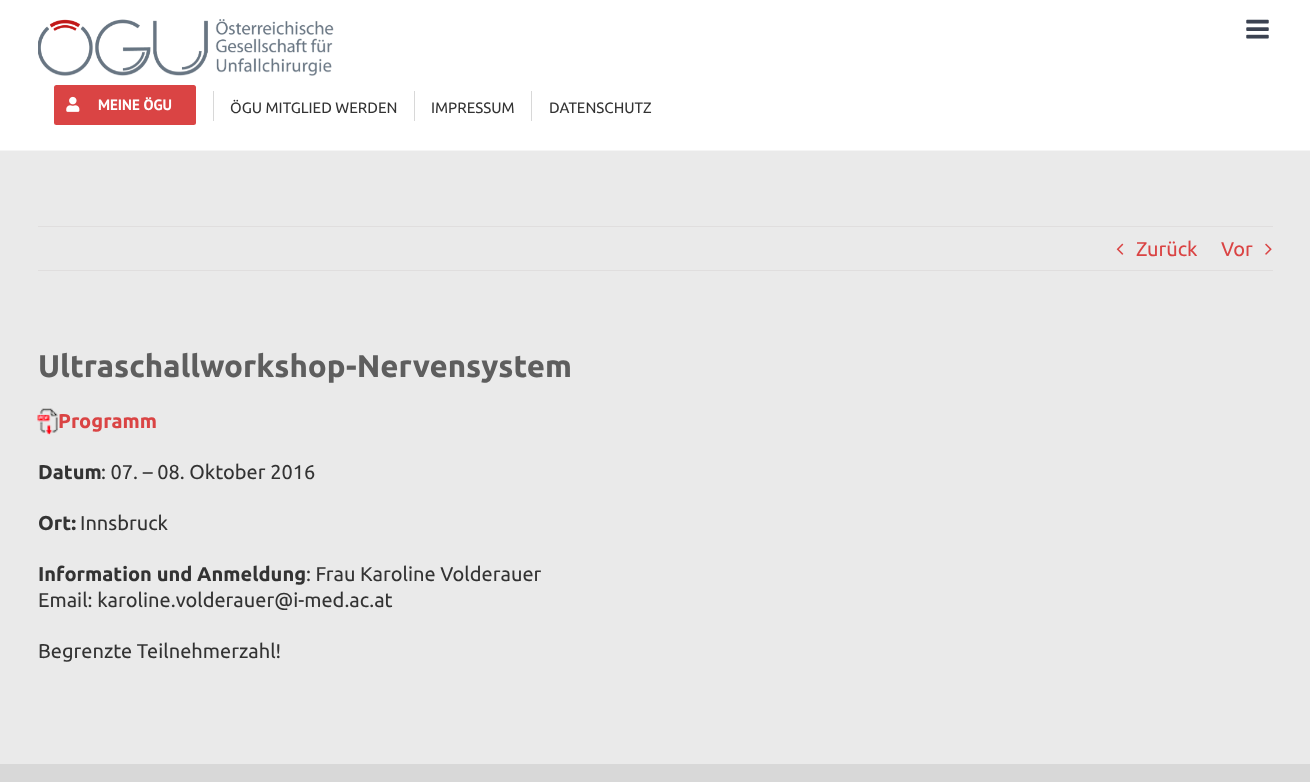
async function draw(canvas) {
	canvas.width = 1310;
	canvas.height = 782;
	const c = canvas.getContext('2d');
	c.miterLimit = 4;
	c.fontKerning = 'normal';
	async function loadImage(src) {
		const img = new Image();
		img.src = src;
		await img.decode();
		return img;
	}

	c.fillStyle = '#eaeaea';
	c.fillRect(0, 0, 1310, 782);
	c.fillStyle = '#fff';
	c.fillRect(0, 0, 1310, 150);
	c.fillStyle = '#f5f5f5';
	c.fillRect(0, 150, 1310, 1);
	c.drawImage(await loadImage('img1.png'), 1246, 19, 23, 20);
	c.drawImage(await loadImage('img2.png'), 38, 19, 296, 57);
	c.fillStyle = '#da4444';
	c.beginPath();
	c.roundRect(54, 85, 142, 40, 2.5);
	c.fill();
	c.drawImage(await loadImage('img3.png'), 66, 96, 14, 16);
	c.font = 'bold 15px PT Sans';
	c.fillStyle = '#fff';
	c.fillText('MEINE ÖGU', 98, 110);
	c.fillStyle = '#d8d8d8';
	c.fillRect(213, 91, 1, 30);
	c.font = '15px Ubuntu';
	c.fillStyle = '#333';
	c.fillText('ÖGU MITGLIED WERDEN', 230, 113);
	c.fillStyle = '#d8d8d8';
	c.fillRect(414, 91, 1, 30);
	c.fillStyle = '#333';
	c.fillText('IMPRESSUM', 431, 113);
	c.fillStyle = '#d8d8d8';
	c.fillRect(531, 91, 1, 30);
	c.fillStyle = '#333';
	c.fillText('DATENSCHUTZ', 549, 113);
	c.fillStyle = '#e0dede';
	c.fillRect(38, 226, 1235, 1);
	c.fillRect(38, 270, 1235, 1);
	c.drawImage(await loadImage('img4.png'), 1116, 243, 8, 12);
	c.font = '20px Ubuntu';
	c.fillStyle = '#da4444';
	c.fillText('Zurück', 1136, 256);
	c.fillText('Vor', 1221, 256);
	c.drawImage(await loadImage('img5.png'), 1265, 243, 7, 12);
	c.font = 'bold 31.25px Ubuntu';
	c.fillStyle = '#5e5e5e';
	c.fillText('Ultraschallworkshop-Nervensystem', 38, 377);
	c.drawImage(await loadImage('img6.png'), 37, 408, 21, 27);
	c.font = 'bold 20px Ubuntu';
	c.fillStyle = '#da4444';
	c.fillText('Programm', 58, 428);
	c.fillStyle = '#333';
	c.fillText('Datum', 38, 479);
	c.font = '20px Ubuntu';
	c.fillText(': 07. – 08. Oktober 2016', 101, 479);
	c.font = 'bold 20px Ubuntu';
	c.fillText('Ort:', 38, 530);
	c.font = '20px Ubuntu';
	c.fillText('Innsbruck', 80, 530);
	c.font = 'bold 20px Ubuntu';
	c.fillText('Information und Anmeldung', 38, 581);
	c.font = '20px Ubuntu';
	for (const [text, x, y] of [
		[': Frau Karoline Volderauer', 306, 581],
		['Email: karoline.volderauer@i-med.ac.at', 38, 607],
		['Begrenzte Teilnehmerzahl!', 38, 658],
	]) {
		c.fillText(text, x, y);
	}
	c.fillStyle = '#d8d8d8';
	c.fillRect(0, 764, 1310, 18);
}

draw(document.querySelector('canvas'));
